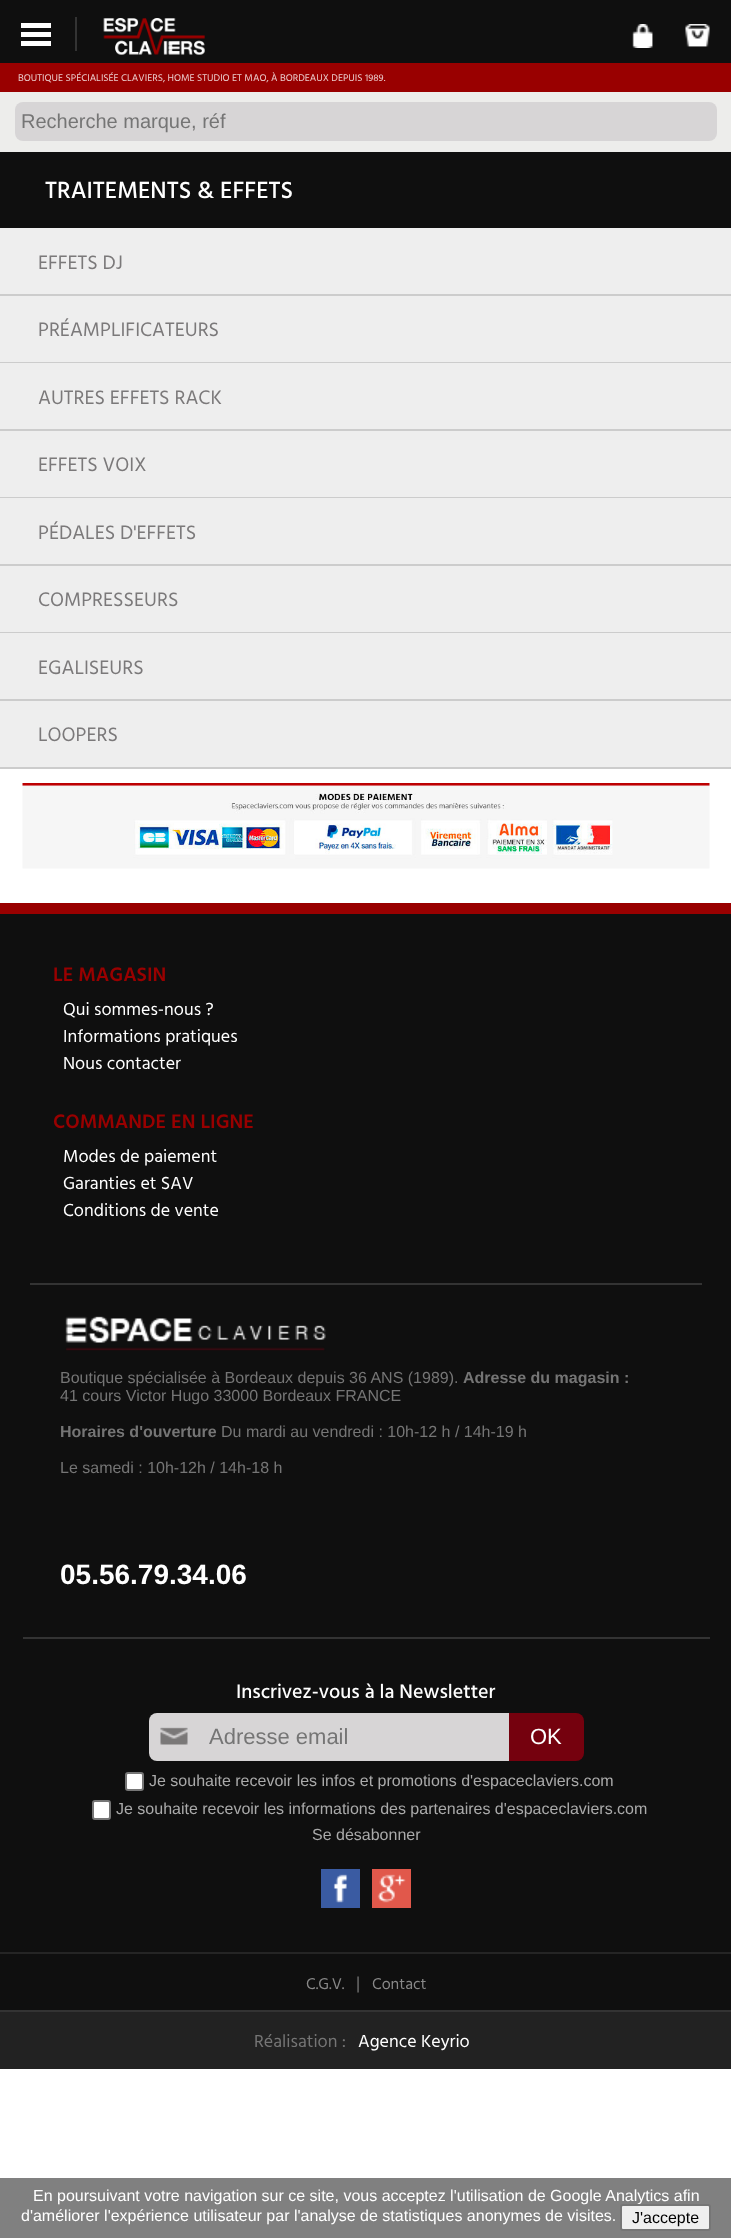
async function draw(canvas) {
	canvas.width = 731;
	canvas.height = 2238;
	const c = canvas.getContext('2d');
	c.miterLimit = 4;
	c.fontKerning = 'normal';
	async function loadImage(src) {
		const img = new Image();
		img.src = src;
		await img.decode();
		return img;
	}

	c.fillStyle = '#fff';
	c.fillRect(0, 0, 731, 2238);
	for (const [x, y, w, h, color] of [
		[0, 0, 731, 63, '#0f0f0f'],
		[21, 32, 30, 5, '#fff'],
		[21, 23, 30, 5, '#fff'],
		[21, 41, 30, 5, '#fff'],
		[75, 17, 2, 34, '#333'],
	]) {
		c.fillStyle = color;
		c.fillRect(x, y, w, h);
	}
	c.drawImage(await loadImage('img1.png'), 103, 18, 102, 37);
	c.drawImage(await loadImage('img2.png'), 632, 24, 21, 24);
	c.drawImage(await loadImage('img3.png'), 685, 24, 25, 23);
	c.fillStyle = '#900';
	c.fillRect(0, 63, 731, 29);
	c.font = '10px Hind Vadodara';
	c.fillStyle = '#ebcccc';
	c.fillText('BOUTIQUE SPÉCIALISÉE CLAVIERS, HOME STUDIO ET MAO, À BORDEAUX DEPUIS 1989.', 18, 81);
	c.fillStyle = '#ededeb';
	c.fillRect(0, 92, 731, 60);
	c.fillStyle = '#d7d5d6';
	c.beginPath();
	c.roundRect(15, 102, 702, 39, 8);
	c.fill();
	c.font = '20px Liberation Sans';
	c.fillStyle = '#757575';
	c.fillText('Recherche marque, réf', 21, 128);
	c.fillStyle = '#0f0f0f';
	c.fillRect(0, 152, 731, 76);
	c.font = '500 24px Hind Vadodara';
	c.fillStyle = '#fff';
	c.fillText('TRAITEMENTS & EFFETS', 45, 198);
	c.fillStyle = '#eee';
	c.fillRect(0, 228, 731, 66);
	c.fillStyle = '#ccc';
	c.fillRect(0, 294, 731, 2);
	c.font = '20px Hind Vadodara';
	c.fillStyle = '#7b797a';
	c.fillText('EFFETS DJ', 38, 269);
	c.fillStyle = '#eee';
	c.fillRect(0, 296, 731, 66);
	c.fillStyle = '#ccc';
	c.fillRect(0, 362, 731, 1);
	c.fillStyle = '#7b797a';
	c.fillText('PRÉAMPLIFICATEURS', 38, 336);
	c.fillStyle = '#eee';
	c.fillRect(0, 363, 731, 66);
	c.fillStyle = '#ccc';
	c.fillRect(0, 429, 731, 2);
	c.fillStyle = '#7b797a';
	c.fillText('AUTRES EFFETS RACK', 38, 404);
	c.fillStyle = '#eee';
	c.fillRect(0, 431, 731, 66);
	c.fillStyle = '#ccc';
	c.fillRect(0, 497, 731, 1);
	c.fillStyle = '#7b797a';
	c.fillText('EFFETS VOIX', 38, 471);
	c.fillStyle = '#eee';
	c.fillRect(0, 498, 731, 66);
	c.fillStyle = '#ccc';
	c.fillRect(0, 564, 731, 2);
	c.fillStyle = '#7b797a';
	c.fillText('PÉDALES D\'EFFETS', 38, 539);
	c.fillStyle = '#eee';
	c.fillRect(0, 566, 731, 66);
	c.fillStyle = '#ccc';
	c.fillRect(0, 632, 731, 1);
	c.fillStyle = '#7b797a';
	c.fillText('COMPRESSEURS', 38, 606);
	c.fillStyle = '#eee';
	c.fillRect(0, 633, 731, 66);
	c.fillStyle = '#ccc';
	c.fillRect(0, 699, 731, 2);
	c.fillStyle = '#7b797a';
	c.fillText('EGALISEURS', 38, 674);
	c.fillStyle = '#eee';
	c.fillRect(0, 701, 731, 66);
	c.fillStyle = '#ccc';
	c.fillRect(0, 767, 731, 2);
	c.fillStyle = '#7b797a';
	c.fillText('LOOPERS', 38, 741);
	c.drawImage(await loadImage('img4.png'), 22, 783, 688, 86);
	c.fillStyle = '#0f0f0f';
	c.fillRect(0, 914, 731, 1038);
	c.fillStyle = '#900';
	c.fillRect(0, 903, 731, 11);
	c.font = '600 20px Hind Vadodara';
	c.fillText('LE MAGASIN', 53, 981);
	c.font = '18px Hind Vadodara';
	c.fillStyle = '#fff';
	for (const [text, x, y] of [
		['Qui sommes-nous ?', 63, 1015],
		['Informations pratiques', 63, 1042],
		['Nous contacter', 63, 1069],
	]) {
		c.fillText(text, x, y);
	}
	c.font = '600 20px Hind Vadodara';
	c.fillStyle = '#900';
	c.fillText('COMMANDE EN LIGNE', 53, 1128);
	c.font = '18px Hind Vadodara';
	c.fillStyle = '#fff';
	for (const [text, x, y] of [
		['Modes de paiement', 63, 1162],
		['Garanties et SAV', 63, 1189],
		['Conditions de vente', 63, 1216],
	]) {
		c.fillText(text, x, y);
	}
	c.fillStyle = '#333';
	c.fillRect(30, 1283, 672, 2);
	c.drawImage(await loadImage('img5.png'), 65, 1316, 261, 35);
	c.font = '16px Liberation Sans';
	c.fillStyle = '#757575';
	c.fillText('Boutique spécialisée à Bordeaux depuis 36 ANS (1989).', 60, 1383);
	c.font = 'bold 16px Liberation Sans';
	c.fillText('Adresse du magasin :', 463, 1383);
	c.font = '16px Liberation Sans';
	c.fillText('41 cours Victor Hugo 33000 Bordeaux FRANCE', 60, 1401);
	c.font = 'bold 16px Liberation Sans';
	c.fillText('Horaires d\'ouverture', 60, 1437);
	c.font = '16px Liberation Sans';
	c.fillText('Du mardi au vendredi : 10h-12 h / 14h-19 h', 221, 1437);
	c.fillText('Le samedi : 10h-12h / 14h-18 h', 60, 1473);
	c.font = 'bold 28px Liberation Sans';
	c.fillStyle = '#fff';
	c.fillText('05.56.79.34.06', 60, 1584);
	c.fillStyle = '#333';
	c.fillRect(23, 1637, 687, 2);
	c.font = '500 20px Hind Vadodara';
	c.fillStyle = '#fff';
	c.fillText('Inscrivez-vous à la Newsletter', 236, 1698);
	c.fillStyle = '#d7d5d6';
	c.beginPath();
	c.roundRect(149, 1713, 360, 48, [8, 0, 0, 8]);
	c.fill();
	c.drawImage(await loadImage('img6.png'), 160, 1727, 28, 18);
	c.font = '22px Liberation Sans';
	c.fillStyle = '#757575';
	c.fillText('Adresse email', 209, 1744);
	c.fillStyle = '#75010e';
	c.beginPath();
	c.roundRect(509, 1713, 75, 48, [0, 8, 8, 0]);
	c.fill();
	c.fillStyle = '#fff';
	c.fillText('OK', 530, 1744);
	c.beginPath();
	c.roundRect(126, 1773, 17, 17, 2);
	c.fill();
	c.strokeStyle = '#767676';
	c.lineWidth = 2;
	c.stroke();
	c.font = '16px Liberation Sans';
	c.fillStyle = '#aaa';
	c.fillText('Je souhaite recevoir les infos et promotions d\'espaceclaviers.com', 149, 1786);
	c.fillStyle = '#fff';
	c.beginPath();
	c.roundRect(93, 1801, 17, 18, 2);
	c.fill();
	c.stroke();
	c.fillStyle = '#aaa';
	c.fillText('Je souhaite recevoir les informations des partenaires d\'espaceclaviers.com', 116, 1814);
	c.fillText('Se désabonner', 312, 1840);
	c.fillStyle = '#3a5ba2';
	c.fillRect(321, 1869, 39, 39);
	c.drawImage(await loadImage('img7.png'), 333, 1874, 15, 29);
	c.fillStyle = '#e1584b';
	c.fillRect(372, 1869, 39, 39);
	c.drawImage(await loadImage('img8.png'), 377, 1874, 29, 29);
	c.fillStyle = '#0f0f0f';
	c.fillRect(0, 1954, 731, 56);
	c.fillStyle = '#252525';
	c.fillRect(0, 1952, 731, 2);
	c.font = '16px Hind Vadodara';
	c.fillStyle = '#888';
	c.fillText('C.G.V.', 306, 1989);
	c.font = '18px Hind Vadodara';
	c.fillStyle = '#757575';
	c.fillText('|', 356, 1989);
	c.font = '16px Hind Vadodara';
	c.fillStyle = '#888';
	c.fillText('Contact', 372, 1989);
	c.fillStyle = '#222';
	c.fillRect(0, 2012, 731, 57);
	c.fillStyle = '#333';
	c.fillRect(0, 2010, 731, 2);
	c.font = '18px Hind Vadodara';
	c.fillStyle = '#757575';
	c.fillText('Réalisation :', 254, 2047);
	c.fillStyle = '#fff';
	c.fillText('Agence Keyrio', 358, 2047);
	c.fillStyle = '#808080';
	c.fillRect(0, 2178, 731, 60);
	c.font = '16px Liberation Sans';
	c.fillStyle = '#fff';
	c.fillText('En poursuivant votre navigation sur ce site, vous acceptez l\'utilisation de Google Analytics afin', 33, 2201);
	c.fillText('d\'améliorer l\'expérience utilisateur par l\'analyse de statistiques anonymes de visites.', 21, 2221);
	c.fillStyle = '#efefef';
	c.beginPath();
	c.roundRect(621, 2205, 89, 25, 2);
	c.fill();
	c.stroke();
	c.fillStyle = '#000';
	c.fillText('J\'accepte', 632, 2223);
}

draw(document.querySelector('canvas'));
